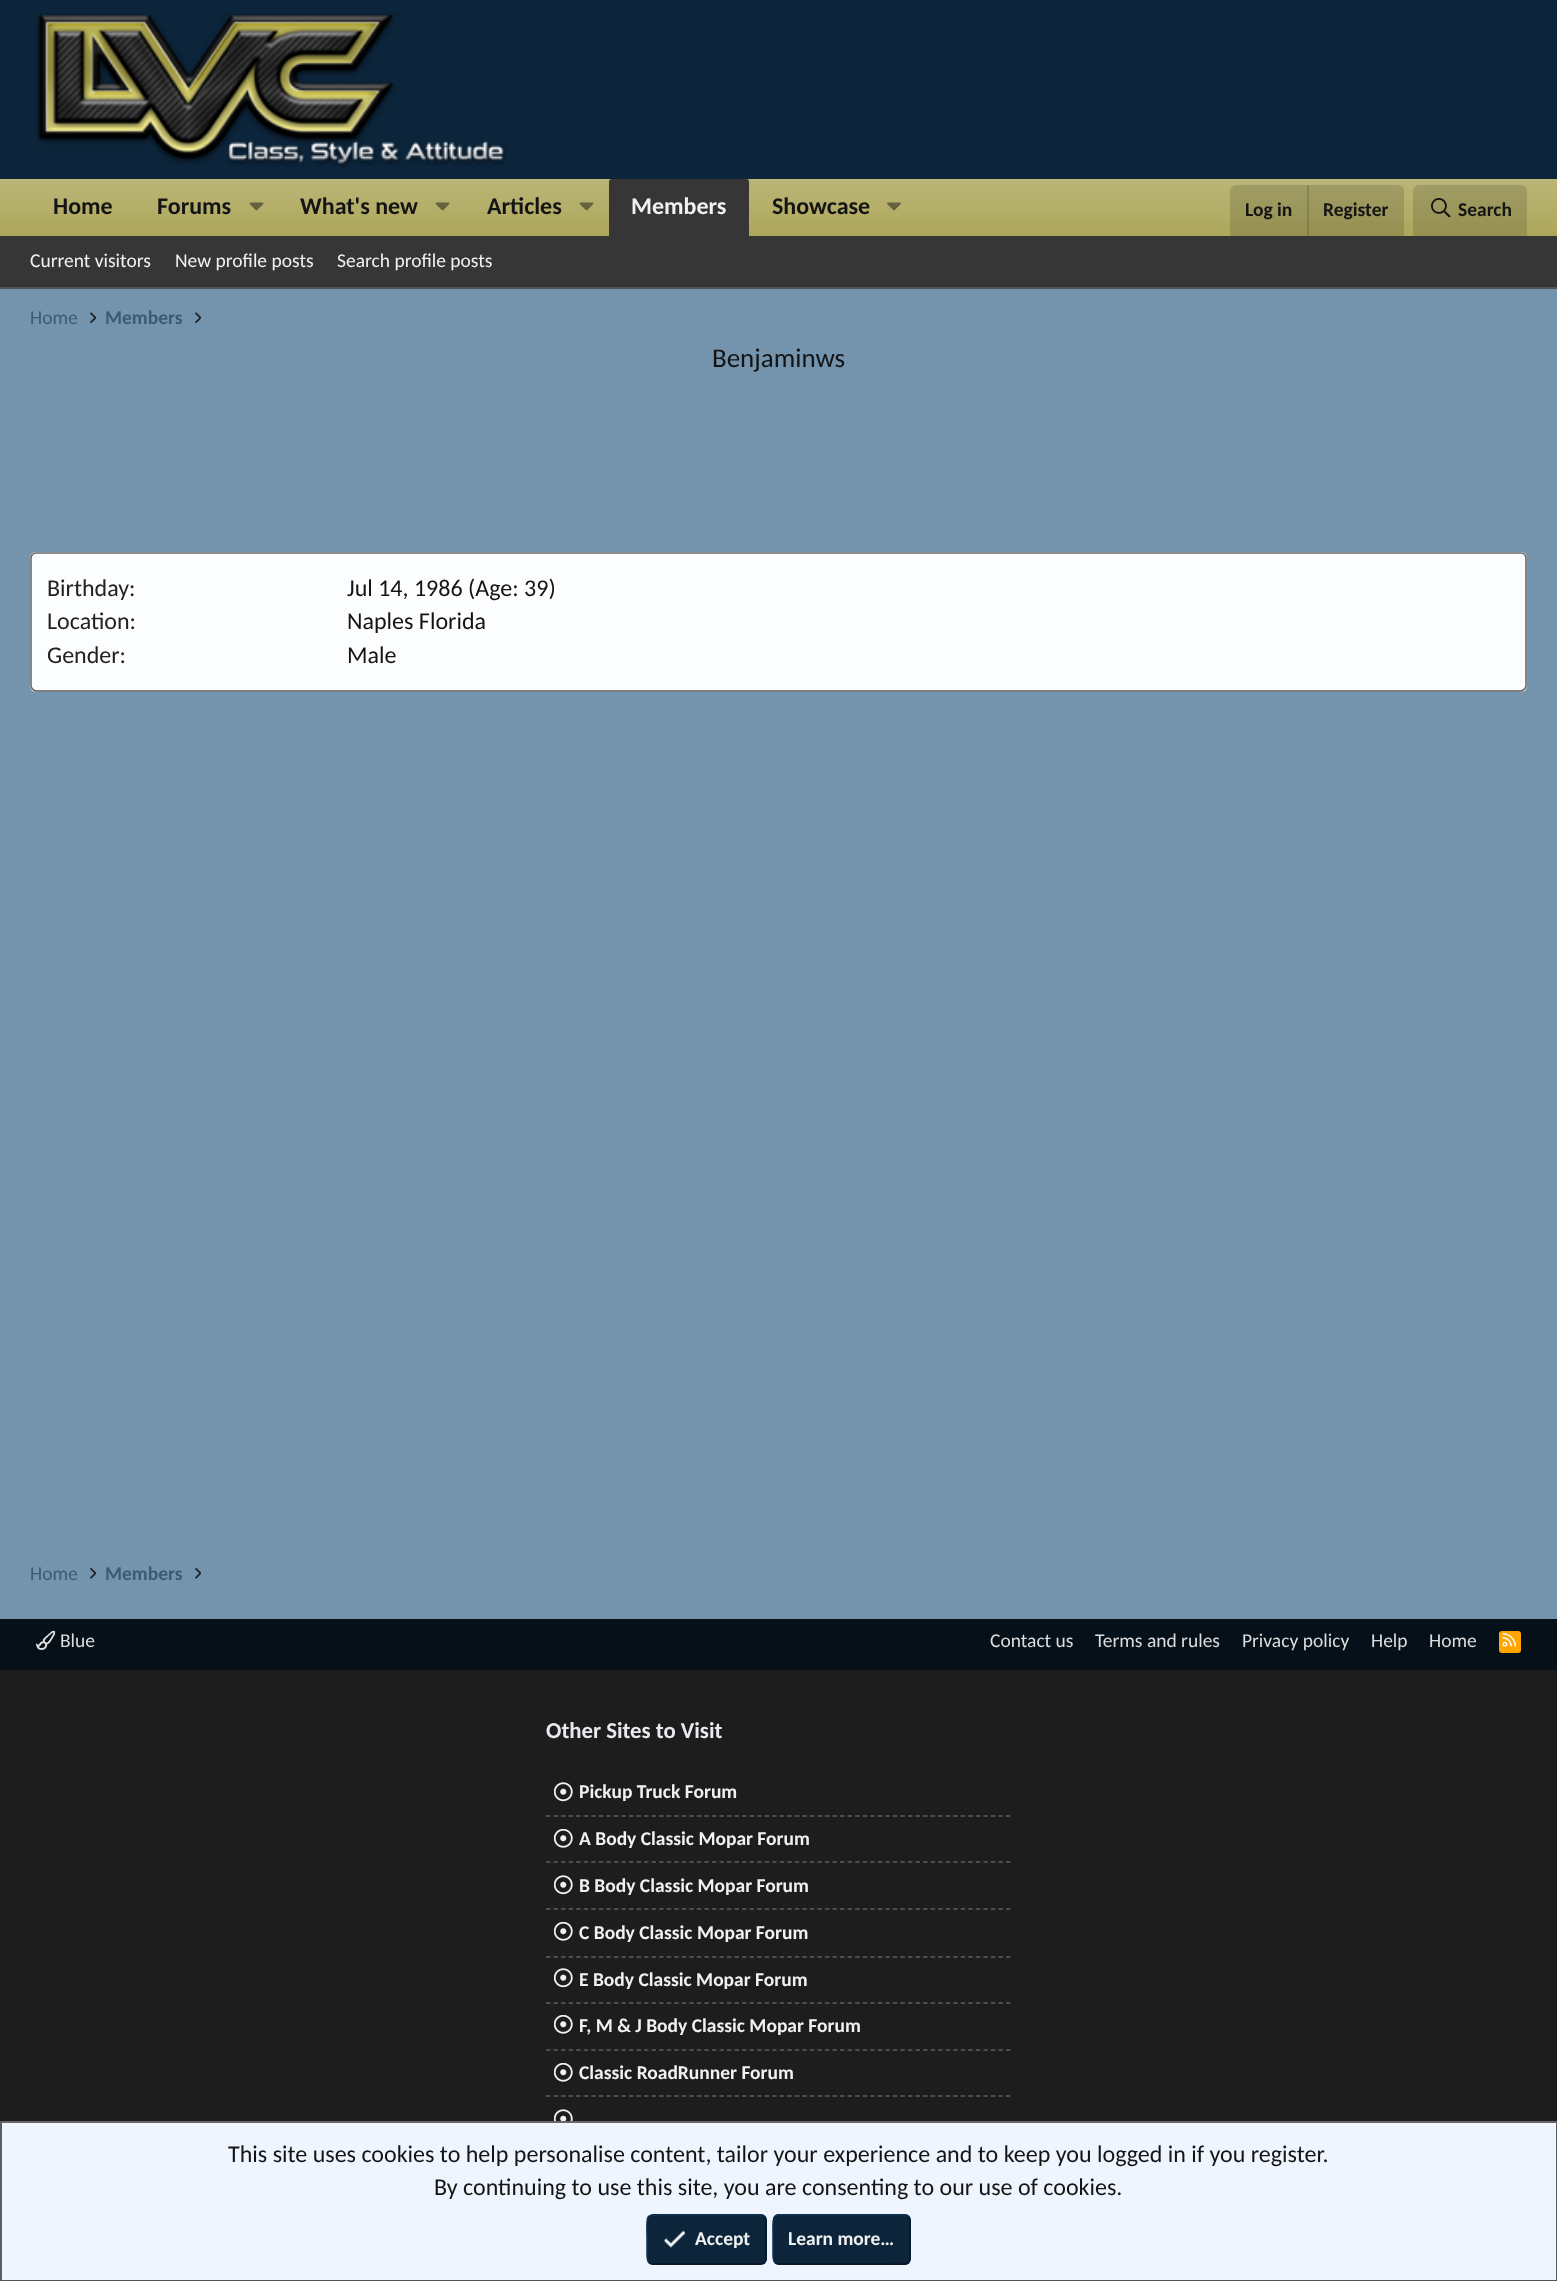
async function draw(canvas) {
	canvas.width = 1557;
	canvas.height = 2281;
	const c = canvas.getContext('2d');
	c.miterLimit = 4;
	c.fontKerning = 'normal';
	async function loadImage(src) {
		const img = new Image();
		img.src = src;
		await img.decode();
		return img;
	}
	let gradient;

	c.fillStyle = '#7493ad';
	c.fillRect(0, 0, 1557, 2281);
	c.fillStyle = '#0c253b';
	c.fillRect(0, 0, 1557, 179);
	c.drawImage(await loadImage('img1.png'), 36, 13, 471, 155);
	gradient = c.createLinearGradient(779, 178, 779, 236);
	gradient.addColorStop(0, '#bbb678');
	gradient.addColorStop(1, '#ada75b');
	c.fillStyle = gradient;
	c.fillRect(0, 179, 1557, 57);
	c.font = 'bold 24px Carlito';
	c.fillStyle = '#141414';
	c.fillText('Home', 53, 214);
	c.fillText('Forums', 157, 214);
	c.drawImage(await loadImage('img2.png'), 249, 202, 15, 9);
	c.fillText('What\'s new', 300, 214);
	c.drawImage(await loadImage('img2.png'), 435, 202, 15, 9);
	c.fillText('Articles', 487, 214);
	c.drawImage(await loadImage('img2.png'), 579, 202, 15, 9);
	c.fillStyle = '#363636';
	c.beginPath();
	c.roundRect(609, 179, 140, 57, [3, 3, 0, 0]);
	c.fill();
	c.fillStyle = '#f1f1f1';
	c.fillText('Members', 631, 214);
	c.fillStyle = '#141414';
	c.fillText('Showcase', 772, 214);
	c.drawImage(await loadImage('img3.png'), 887, 202, 14, 9);
	c.fillStyle = '#14141426';
	c.beginPath();
	c.roundRect(1230, 185, 174, 51, [6, 6, 0, 0]);
	c.fill();
	c.font = 'bold 19.5px Carlito';
	c.fillStyle = '#141414';
	c.fillText('Log in', 1245, 216);
	c.fillStyle = '#14141426';
	c.fillRect(1307, 185, 2, 51);
	c.fillStyle = '#141414';
	c.fillText('Register', 1323, 216);
	c.fillStyle = '#14141426';
	c.beginPath();
	c.roundRect(1413, 185, 114, 51, [6, 6, 0, 0]);
	c.fill();
	c.drawImage(await loadImage('img4.png'), 1431, 198, 20, 20);
	c.fillStyle = '#141414';
	c.fillText('Search', 1458, 216);
	c.fillStyle = '#363636';
	c.fillRect(0, 236, 1557, 51);
	c.fillStyle = '#535353';
	c.fillRect(0, 287, 1557, 2);
	c.font = '19.5px Carlito';
	c.fillStyle = '#f1f1f1';
	for (const [text, x, y] of [
		['Current visitors', 30, 267],
		['New profile posts', 175, 267],
		['Search profile posts', 337, 267],
	]) {
		c.fillText(text, x, y);
	}
	c.fillStyle = '#3e5a72';
	c.fillText('Home', 30, 324);
	c.drawImage(await loadImage('img5.png'), 90, 312, 6, 12);
	c.font = 'bold 19.5px Carlito';
	c.fillText('Members', 105, 324);
	c.drawImage(await loadImage('img5.png'), 195, 312, 6, 12);
	c.font = '27px Carlito';
	c.fillStyle = '#141414';
	c.fillText('Benjaminws', 712, 367);
	c.fillStyle = '#fcfdff';
	c.beginPath();
	c.roundRect(30, 552, 1497, 140, 6);
	c.fill();
	c.beginPath();
	c.moveTo(32.5, 554.5);
	c.bezierCurveTo(33.5, 553.5, 34.5, 553, 36, 553);
	c.lineTo(1521, 553);
	c.bezierCurveTo(1522.5, 553, 1523.5, 553.5, 1524.5, 554.5);
	c.strokeStyle = '#676767';
	c.lineWidth = 1.5;
	c.stroke();
	c.beginPath();
	c.moveTo(1524.5, 554.5);
	c.bezierCurveTo(1525.5, 555.5, 1526, 556.5, 1526, 558);
	c.lineTo(1526, 685.5);
	c.bezierCurveTo(1526, 687, 1525.5, 688, 1524.5, 689);
	c.strokeStyle = '#5d5d5d';
	c.stroke();
	c.beginPath();
	c.moveTo(1524.5, 689);
	c.bezierCurveTo(1523.5, 690, 1522.5, 691, 1521, 691);
	c.lineTo(36, 691);
	c.bezierCurveTo(34.5, 691, 33.5, 690, 32.5, 689);
	c.strokeStyle = '#535353';
	c.stroke();
	c.beginPath();
	c.moveTo(32.5, 689);
	c.bezierCurveTo(31.5, 688, 31, 687, 31, 685.5);
	c.lineTo(31, 558);
	c.bezierCurveTo(31, 556.5, 31.5, 555.5, 32.5, 554.5);
	c.strokeStyle = '#5d5d5d';
	c.stroke();
	c.font = '24px Carlito';
	c.fillStyle = '#222';
	c.fillText('Birthday:', 47, 596);
	c.fillStyle = '#141414';
	c.fillText('Jul 14, 1986 (Age: 39)', 347, 596);
	c.fillStyle = '#222';
	c.fillText('Location:', 47, 629);
	c.fillStyle = '#141414';
	c.fillText('Naples Florida', 347, 629);
	c.fillStyle = '#222';
	c.fillText('Gender:', 47, 663);
	c.fillStyle = '#141414';
	c.fillText('Male', 347, 663);
	c.font = '19.5px Carlito';
	c.fillStyle = '#3e5a72';
	c.fillText('Home', 30, 1580);
	c.drawImage(await loadImage('img6.png'), 90, 1567, 6, 12);
	c.font = 'bold 19.5px Carlito';
	c.fillText('Members', 105, 1580);
	c.drawImage(await loadImage('img6.png'), 195, 1567, 6, 12);
	c.fillStyle = '#051019';
	c.fillRect(0, 1619, 1557, 51);
	c.drawImage(await loadImage('img7.png'), 36, 1630, 20, 20);
	c.font = '19.5px Carlito';
	c.fillStyle = '#ddd';
	for (const [text, x, y] of [
		['Blue', 60, 1647],
		['Contact us', 990, 1647],
		['Terms and rules', 1095, 1647],
		['Privacy policy', 1242, 1647],
		['Help', 1371, 1647],
		['Home', 1429, 1647],
	]) {
		c.fillText(text, x, y);
	}
	c.fillStyle = '#ffa500';
	c.beginPath();
	c.roundRect(1499, 1631, 22, 22, 3);
	c.fill();
	c.drawImage(await loadImage('img8.png'), 1502, 1633, 15, 14);
	c.fillStyle = '#1d1d1d';
	c.fillRect(0, 1670, 1557, 451);
	c.font = 'bold 22.75px Carlito';
	c.fillStyle = '#e9e9ef';
	c.fillText('Other Sites to Visit', 546, 1738);
	c.beginPath();
	c.moveTo(546, 1816);
	c.lineTo(1011, 1816);
	c.setLineDash([4.5, 3.04]);
	c.stroke();
	c.drawImage(await loadImage('img9.png'), 554, 1782, 19, 20);
	c.font = 'bold 19.5px Carlito';
	c.fillStyle = '#f1f1f1';
	c.fillText('Pickup Truck Forum', 579, 1798);
	c.beginPath();
	c.moveTo(546, 1862);
	c.lineTo(1011, 1862);
	c.stroke();
	c.drawImage(await loadImage('img10.png'), 554, 1829, 19, 19);
	c.fillText('A Body Classic Mopar Forum', 579, 1845);
	c.beginPath();
	c.moveTo(546, 1909);
	c.lineTo(1011, 1909);
	c.stroke();
	c.drawImage(await loadImage('img9.png'), 554, 1875, 19, 20);
	c.fillText('B Body Classic Mopar Forum', 579, 1892);
	c.beginPath();
	c.moveTo(546, 1957);
	c.lineTo(1011, 1957);
	c.stroke();
	c.drawImage(await loadImage('img10.png'), 554, 1922, 19, 19);
	c.fillText('C Body Classic Mopar Forum', 579, 1939);
	c.beginPath();
	c.moveTo(546, 2003);
	c.lineTo(1011, 2003);
	c.stroke();
	c.drawImage(await loadImage('img9.png'), 554, 1968, 19, 20);
	c.fillText('E Body Classic Mopar Forum', 579, 1986);
	c.beginPath();
	c.moveTo(546, 2050);
	c.lineTo(1011, 2050);
	c.stroke();
	c.drawImage(await loadImage('img10.png'), 554, 2015, 19, 19);
	c.fillText('F, M & J Body Classic Mopar Forum', 579, 2032);
	c.beginPath();
	c.moveTo(546, 2096);
	c.lineTo(1011, 2096);
	c.stroke();
	c.drawImage(await loadImage('img10.png'), 554, 2063, 19, 19);
	c.fillText('Classic RoadRunner Forum', 579, 2079);
	c.drawImage(await loadImage('img11.png'), 554, 2109, 19, 12);
	for (const [x, y, w, h, color] of [
		[2, 2123, 1554, 157, '#eff5ff'],
		[0, 2121, 1557, 2, '#676767'],
		[1556, 2121, 1, 160, '#5d5d5d'],
		[0, 2280, 1557, 1, '#535353'],
		[0, 2121, 2, 160, '#5d5d5d'],
	]) {
		c.fillStyle = color;
		c.fillRect(x, y, w, h);
	}
	c.font = '24px Carlito';
	c.fillStyle = '#141414';
	c.fillText('This site uses cookies to help personalise content, tailor your experience and to keep you logged in if you register.', 228, 2162);
	c.fillText('By continuing to use this site, you are consenting to our use of cookies.', 434, 2195);
	c.fillStyle = '#0c253b';
	c.beginPath();
	c.roundRect(647, 2214, 120, 51, 6);
	c.fill();
	c.beginPath();
	c.moveTo(764, 2216.5);
	c.bezierCurveTo(766.5, 2219, 766, 2223.5, 766, 2226.5);
	c.lineTo(766, 2239.5);
	c.bezierCurveTo(766, 2267.5, 770.5, 2264, 742.5, 2264);
	c.lineTo(652.5, 2264);
	c.bezierCurveTo(651, 2264, 650, 2263.5, 649, 2262.5);
	c.strokeStyle = '#081826';
	c.setLineDash([]);
	c.stroke();
	c.beginPath();
	c.moveTo(649, 2262.5);
	c.bezierCurveTo(646.5, 2260, 647, 2255.5, 647, 2252.5);
	c.lineTo(647, 2239.5);
	c.bezierCurveTo(647, 2211.5, 642.5, 2215, 670.5, 2215);
	c.lineTo(760.5, 2215);
	c.bezierCurveTo(762, 2215, 763, 2215.5, 764, 2216.5);
	c.strokeStyle = '#103250';
	c.stroke();
	c.drawImage(await loadImage('img12.png'), 664, 2230, 21, 18);
	c.font = 'bold 19.5px Carlito';
	c.fillStyle = '#f1f1f1';
	c.fillText('Accept', 695, 2245);
	c.fillStyle = '#0c253b';
	c.beginPath();
	c.roundRect(773, 2214, 138, 51, 6);
	c.fill();
	c.beginPath();
	c.moveTo(908, 2216.5);
	c.bezierCurveTo(910.5, 2219, 910, 2223.5, 910, 2226.5);
	c.lineTo(910, 2239.5);
	c.bezierCurveTo(910, 2269, 914, 2264, 883.5, 2264);
	c.lineTo(778.5, 2264);
	c.bezierCurveTo(777, 2264, 776, 2263.5, 775, 2262.5);
	c.strokeStyle = '#081826';
	c.stroke();
	c.beginPath();
	c.moveTo(775, 2262.5);
	c.bezierCurveTo(772.5, 2260, 773, 2255.5, 773, 2252.5);
	c.lineTo(773, 2239.5);
	c.bezierCurveTo(773, 2210, 769, 2215, 799.5, 2215);
	c.lineTo(904.5, 2215);
	c.bezierCurveTo(906, 2215, 907, 2215.5, 908, 2216.5);
	c.strokeStyle = '#103250';
	c.stroke();
	c.fillStyle = '#f1f1f1';
	c.fillText('Learn more…', 788, 2245);
}

draw(document.querySelector('canvas'));
